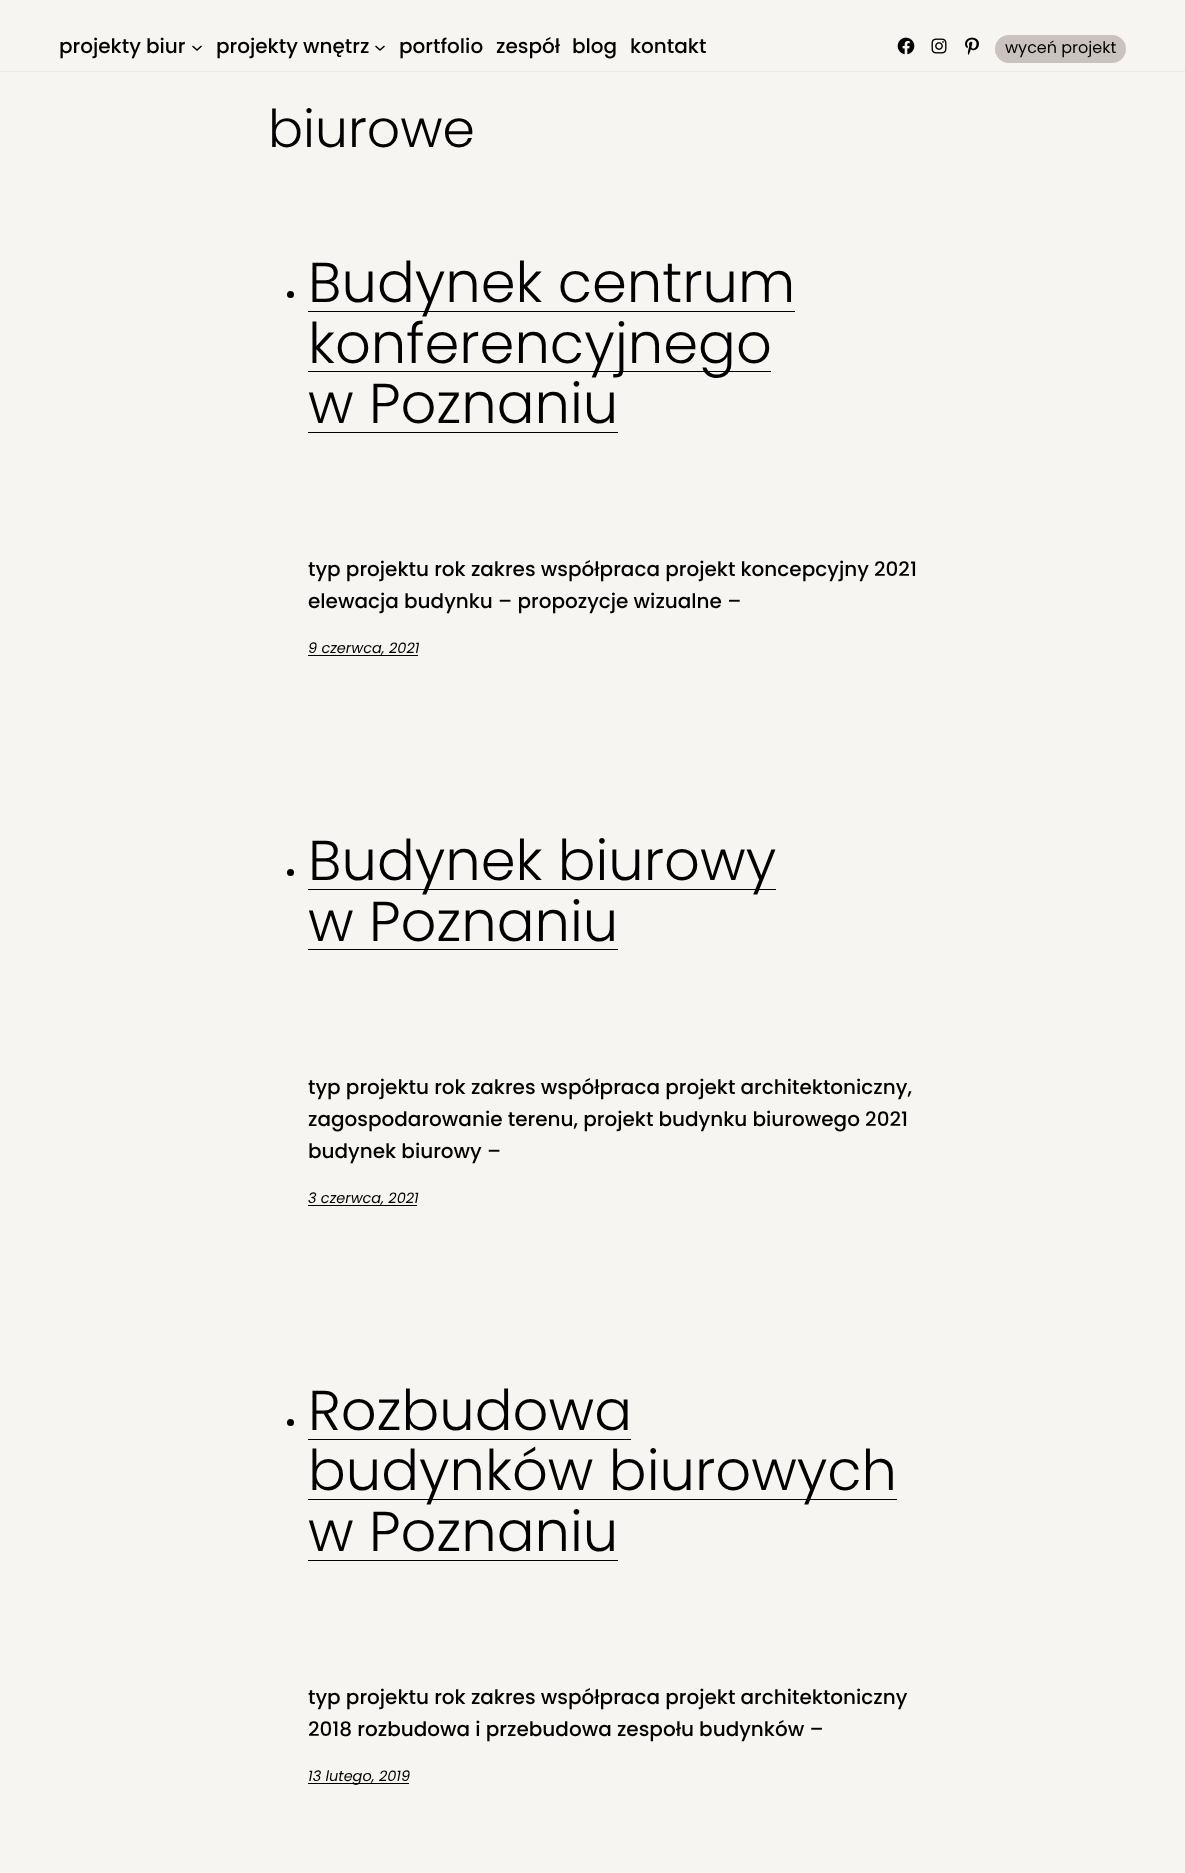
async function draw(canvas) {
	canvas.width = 1185;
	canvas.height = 1873;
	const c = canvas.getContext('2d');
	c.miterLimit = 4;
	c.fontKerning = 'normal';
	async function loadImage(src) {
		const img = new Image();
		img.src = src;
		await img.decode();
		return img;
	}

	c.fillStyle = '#f7f5f2';
	c.fillRect(0, 0, 1185, 1873);
	c.fillStyle = '#efe9e1';
	c.fillRect(0, 71, 1185, 1);
	c.font = '500 20px Poppins';
	c.fillStyle = '#000';
	c.fillText('projekty biur', 59, 53);
	c.beginPath();
	c.moveTo(192.5, 46);
	c.lineTo(197, 50);
	c.lineTo(201.5, 46);
	c.strokeStyle = '#000';
	c.lineWidth = 1.5;
	c.stroke();
	c.fillText('projekty wnętrz', 216, 53);
	c.beginPath();
	c.moveTo(375.5, 46);
	c.lineTo(380, 50);
	c.lineTo(384.5, 46);
	c.stroke();
	for (const [text, x, y] of [
		['portfolio', 399, 53],
		['zespół', 496, 53],
		['blog', 572, 53],
		['kontakt', 630, 53],
	]) {
		c.fillText(text, x, y);
	}
	c.drawImage(await loadImage('img1.png'), 897, 37, 18, 18);
	c.drawImage(await loadImage('img2.png'), 931, 38, 16, 16);
	c.drawImage(await loadImage('img3.png'), 965, 37, 14, 18);
	c.fillStyle = '#cac2be';
	c.beginPath();
	c.roundRect(995, 35, 131, 28, 14);
	c.fill();
	c.font = '16px Poppins';
	c.fillStyle = '#000';
	c.fillText('wyceń projekt', 1005, 53);
	c.font = '300 52px Poppins';
	c.fillText('biurowe', 268, 147);
	c.beginPath();
	c.arc(290.5, 294.5, 3.5, 0, 2 * Math.PI);
	c.fill();
	c.fillRect(308, 311, 487, 1);
	c.font = '300 56px Poppins';
	c.fillText('Budynek centrum', 308, 302);
	c.fillRect(308, 371, 463, 1);
	c.fillText('konferencyjnego', 308, 363);
	c.fillText('w Poznaniu', 308, 423);
	c.fillRect(308, 432, 310, 1);
	c.font = '500 20px Poppins';
	c.fillText('typ projektu rok zakres współpraca projekt koncepcyjny 2021', 308, 576);
	c.fillText('elewacja budynku – propozycje wizualne –', 308, 608);
	c.fillRect(308, 655, 110, 1);
	c.font = 'italic 14.5px Poppins';
	c.fillText('9 czerwca, 2021', 308, 653);
	c.beginPath();
	c.arc(290.5, 872.5, 3.5, 0, 2 * Math.PI);
	c.fill();
	c.fillRect(308, 889, 468, 1);
	c.font = '300 56px Poppins';
	c.fillText('Budynek biurowy', 308, 880);
	c.fillText('w Poznaniu', 308, 941);
	c.fillRect(308, 949, 310, 1);
	c.font = '500 20px Poppins';
	for (const [text, x, y] of [
		['typ projektu rok zakres współpraca projekt architektoniczny,', 308, 1094],
		['zagospodarowanie terenu, projekt budynku biurowego 2021', 308, 1126],
		['budynek biurowy –', 308, 1158],
	]) {
		c.fillText(text, x, y);
	}
	c.fillRect(308, 1205, 109, 1);
	c.font = 'italic 14.5px Poppins';
	c.fillText('3 czerwca, 2021', 308, 1203);
	c.beginPath();
	c.arc(290.5, 1422.5, 3.5, 0, 2 * Math.PI);
	c.fill();
	c.font = '300 56px Poppins';
	c.fillText('Rozbudowa', 308, 1430);
	c.fillRect(308, 1439, 323, 1);
	c.fillRect(308, 1499, 589, 1);
	c.fillText('budynków biurowych', 308, 1490);
	c.fillText('w Poznaniu', 308, 1551);
	c.fillRect(308, 1560, 310, 1);
	c.font = '500 20px Poppins';
	c.fillText('typ projektu rok zakres współpraca projekt architektoniczny', 308, 1704);
	c.fillText('2018 rozbudowa i przebudowa zespołu budynków –', 308, 1736);
	c.fillRect(308, 1783, 101, 1);
	c.font = 'italic 14.5px Poppins';
	c.fillText('13 lutego, 2019', 308, 1781);
}

draw(document.querySelector('canvas'));
